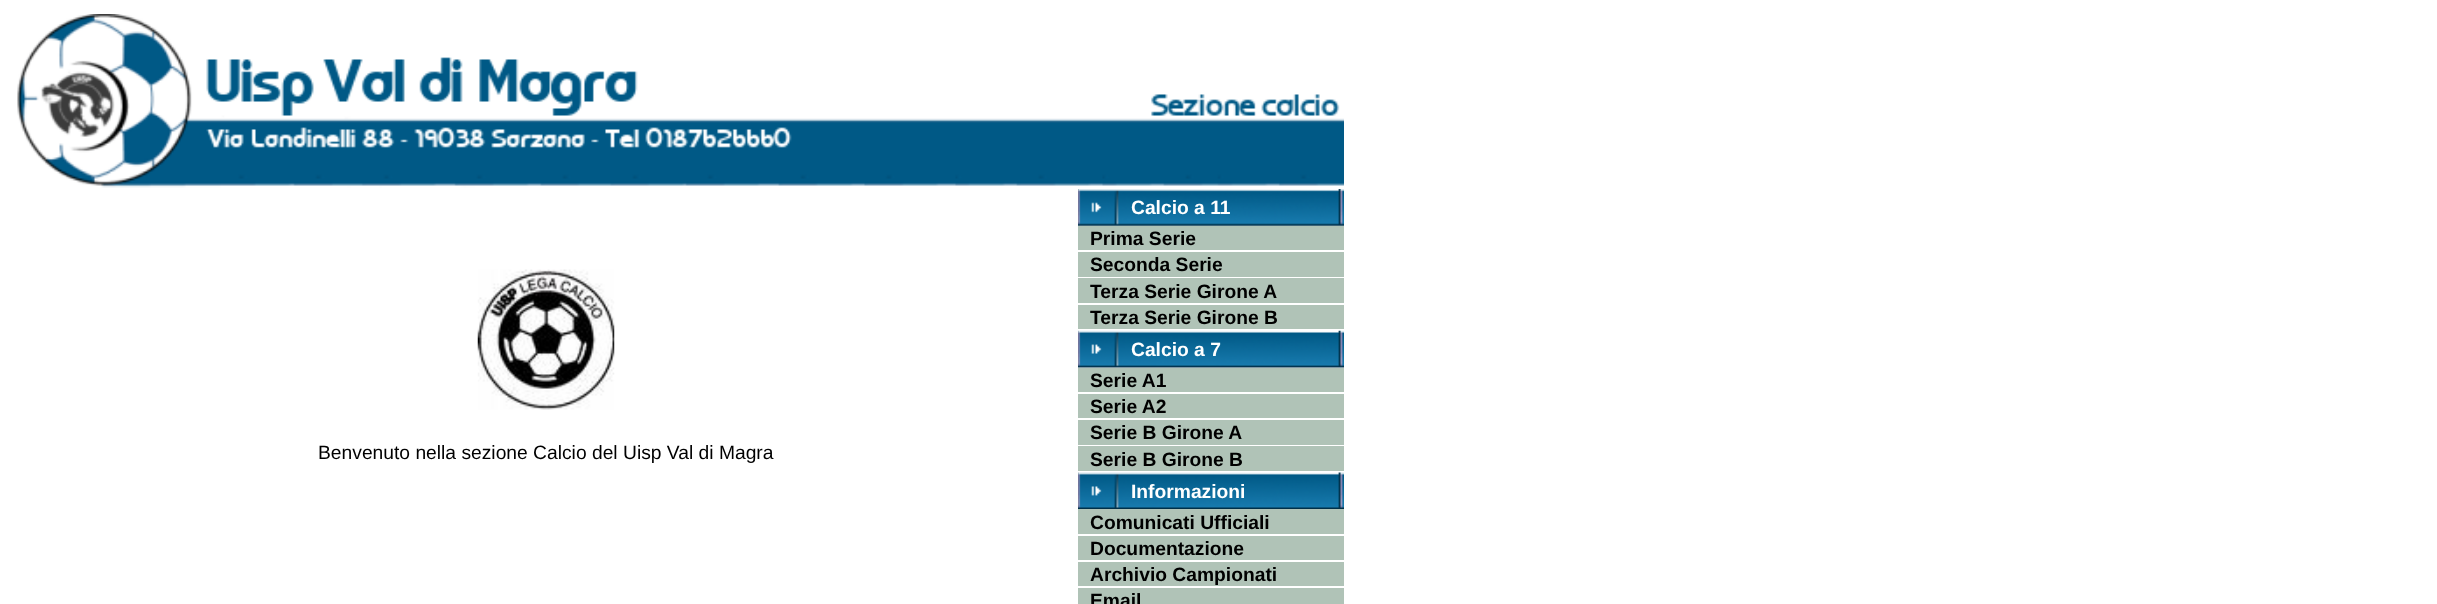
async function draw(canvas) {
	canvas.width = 2437;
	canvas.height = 604;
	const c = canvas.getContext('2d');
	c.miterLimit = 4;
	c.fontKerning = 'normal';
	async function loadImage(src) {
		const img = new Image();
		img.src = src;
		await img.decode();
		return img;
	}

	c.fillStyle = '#fff';
	c.fillRect(0, 0, 2437, 604);
	c.drawImage(await loadImage('img1.png'), 17, 14, 1327, 174);
	c.drawImage(await loadImage('img2.png'), 477, 269, 138, 141);
	c.font = '19.25px Liberation Sans';
	c.fillStyle = '#000';
	c.fillText('Benvenuto nella sezione Calcio del Uisp Val di Magra', 318, 459);
	c.drawImage(await loadImage('img3.png'), 1078, 189, 266, 37);
	c.font = 'bold 19.25px Liberation Sans';
	c.fillStyle = '#fff';
	c.fillText('Calcio a 11', 1131, 214);
	c.fillStyle = '#b0c3b7';
	c.fillRect(1078, 226, 266, 24);
	c.fillStyle = '#000';
	c.fillText('Prima Serie', 1090, 245);
	c.fillStyle = '#b0c3b7';
	c.fillRect(1078, 252, 266, 25);
	c.fillStyle = '#000';
	c.fillText('Seconda Serie', 1090, 271);
	c.fillStyle = '#b0c3b7';
	c.fillRect(1078, 278, 266, 25);
	c.fillStyle = '#000';
	c.fillText('Terza Serie Girone A', 1090, 298);
	c.fillStyle = '#b0c3b7';
	c.fillRect(1078, 305, 266, 24);
	c.fillStyle = '#000';
	c.fillText('Terza Serie Girone B', 1090, 324);
	c.drawImage(await loadImage('img4.png'), 1078, 330, 266, 38);
	c.fillStyle = '#fff';
	c.fillText('Calcio a 7', 1131, 356);
	c.fillStyle = '#b0c3b7';
	c.fillRect(1078, 368, 266, 24);
	c.fillStyle = '#000';
	c.fillText('Serie A1', 1090, 387);
	c.fillStyle = '#b0c3b7';
	c.fillRect(1078, 394, 266, 24);
	c.fillStyle = '#000';
	c.fillText('Serie A2', 1090, 413);
	c.fillStyle = '#b0c3b7';
	c.fillRect(1078, 420, 266, 25);
	c.fillStyle = '#000';
	c.fillText('Serie B Girone A', 1090, 439);
	c.fillStyle = '#b0c3b7';
	c.fillRect(1078, 446, 266, 25);
	c.fillStyle = '#000';
	c.fillText('Serie B Girone B', 1090, 466);
	c.drawImage(await loadImage('img5.png'), 1078, 472, 266, 37);
	c.fillStyle = '#fff';
	c.fillText('Informazioni', 1131, 498);
	c.fillStyle = '#b0c3b7';
	c.fillRect(1078, 509, 266, 25);
	c.fillStyle = '#000';
	c.fillText('Comunicati Ufficiali', 1090, 529);
	c.fillStyle = '#b0c3b7';
	c.fillRect(1078, 536, 266, 24);
	c.fillStyle = '#000';
	c.fillText('Documentazione', 1090, 555);
	c.fillStyle = '#b0c3b7';
	c.fillRect(1078, 562, 266, 24);
	c.fillStyle = '#000';
	c.fillText('Archivio Campionati', 1090, 581);
	c.fillStyle = '#b0c3b7';
	c.fillRect(1078, 588, 266, 16);
	c.fillStyle = '#000';
	c.fillText('Email', 1090, 607);
}

draw(document.querySelector('canvas'));
